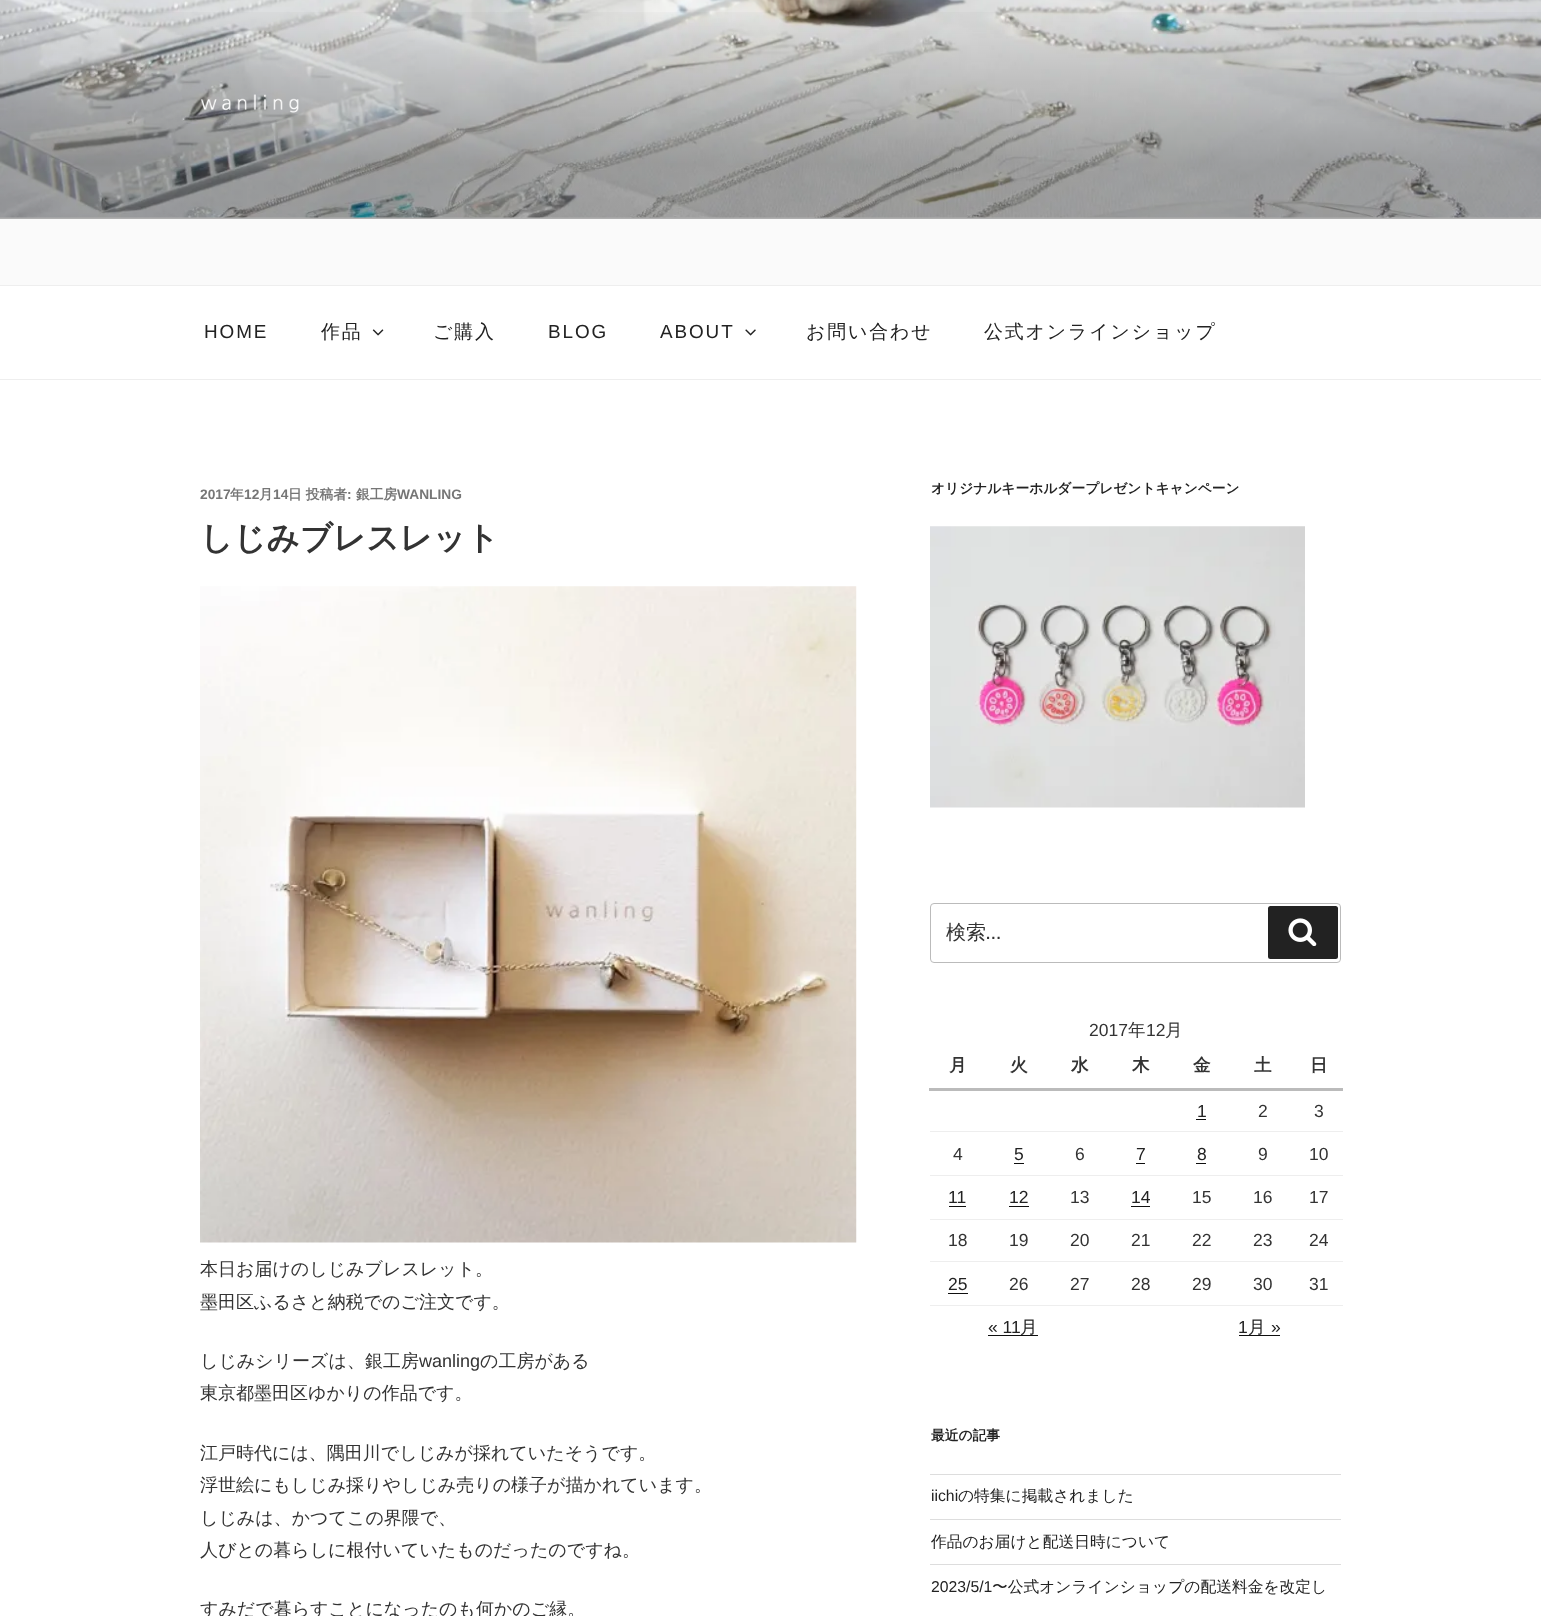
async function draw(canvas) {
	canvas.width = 1541;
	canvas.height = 1616;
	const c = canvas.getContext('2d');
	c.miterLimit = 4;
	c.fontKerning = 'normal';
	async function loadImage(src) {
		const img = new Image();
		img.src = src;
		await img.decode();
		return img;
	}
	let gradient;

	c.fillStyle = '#fff';
	c.fillRect(0, 0, 1541, 1616);
	c.fillStyle = '#fafafa';
	c.fillRect(0, 217, 1541, 68);
	c.drawImage(await loadImage('img1.png'), 0, 0, 1541, 218);
	gradient = c.createLinearGradient(771, 0, 771, 219);
	gradient.addColorStop(0, '#00000000');
	gradient.addColorStop(0.75, '#0000004d');
	gradient.addColorStop(1, '#0000004d');
	c.fillStyle = gradient;
	c.fillRect(0, 12, 1541, 207);
	c.drawImage(await loadImage('img2.png'), 200, 94, 99, 19);
	c.fillStyle = '#eee';
	c.fillRect(0, 285, 1541, 1);
	c.fillRect(0, 379, 1541, 1);
	c.letterSpacing = '1.9px';
	c.font = '18.9px Liberation Sans';
	c.fillStyle = '#222';
	c.fillText('HOME', 204, 338);
	c.font = '500 18.9px WenQuanYi Zen Hei';
	c.fillText('作品', 321, 338);
	c.drawImage(await loadImage('img3.png'), 372, 329, 12, 7);
	c.fillText('ご購入', 433, 338);
	c.font = '18.9px Liberation Sans';
	c.fillText('BLOG', 548, 338);
	c.fillText('ABOUT', 660, 338);
	c.drawImage(await loadImage('img4.png'), 745, 329, 11, 7);
	c.font = '500 18.9px WenQuanYi Zen Hei';
	c.fillText('お問い合わせ', 806, 338);
	c.fillText('公式オンラインショップ', 984, 338);
	c.letterSpacing = '0px';
	c.font = 'bold 13.75px Liberation Sans';
	c.fillStyle = '#767676';
	c.fillText('2017', 200, 499);
	c.font = 'bold 13.75px WenQuanYi Zen Hei';
	c.fillText('年', 230, 499);
	c.font = 'bold 13.75px Liberation Sans';
	c.fillText('12', 244, 499);
	c.font = 'bold 13.75px WenQuanYi Zen Hei';
	c.fillText('月', 259, 499);
	c.font = 'bold 13.75px Liberation Sans';
	c.fillText('14', 273, 499);
	c.font = 'bold 13.75px WenQuanYi Zen Hei';
	c.fillText('日 投稿者', 288, 499);
	c.font = 'bold 13.75px Liberation Sans';
	c.fillText(':', 347, 499);
	c.font = 'bold 13.75px WenQuanYi Zen Hei';
	c.fillText('銀工房', 356, 499);
	c.font = 'bold 13.75px Liberation Sans';
	c.fillText('WANLING', 397, 499);
	c.font = 'bold 32.5px WenQuanYi Zen Hei';
	c.fillStyle = '#333';
	c.fillText('しじみブレスレット', 200, 549);
	c.drawImage(await loadImage('img5.png'), 200, 586, 657, 657);
	c.font = '500 18px WenQuanYi Zen Hei';
	for (const [text, x, y] of [
		['本日お届けのしじみブレスレット。', 200, 1275],
		['墨田区ふるさと納税でのご注文です。', 200, 1308],
		['しじみシリーズは、銀工房', 200, 1367],
	]) {
		c.fillText(text, x, y);
	}
	c.font = '18px Liberation Sans';
	c.fillText('wanling', 419, 1367);
	c.font = '500 18px WenQuanYi Zen Hei';
	for (const [text, x, y] of [
		['の工房がある', 480, 1367],
		['東京都墨田区ゆかりの作品です。', 200, 1399],
		['江戸時代には、隅田川でしじみが採れていたそうです。', 200, 1459],
		['浮世絵にもしじみ採りやしじみ売りの様子が描かれています。', 200, 1491],
		['しじみは、かつてこの界隈で、', 200, 1524],
		['人びとの暮らしに根付いていたものだったのですね。', 200, 1556],
		['すみだで暮らすことになったのも何かのご縁。', 200, 1615],
	]) {
		c.fillText(text, x, y);
	}
	c.font = 'bold 13.75px WenQuanYi Zen Hei';
	c.fillStyle = '#222';
	c.fillText('オリジナルキーホルダープレゼントキャンペーン', 931, 493);
	c.drawImage(await loadImage('img6.png'), 930, 526, 375, 282);
	c.beginPath();
	c.roundRect(930.5, 903.5, 410, 59, 3.5);
	c.strokeStyle = '#bbb';
	c.stroke();
	c.font = '500 20px WenQuanYi Zen Hei';
	c.fillStyle = '#333';
	c.fillText('検索', 946, 939);
	c.font = '20px Libre Franklin';
	c.fillText('…', 986, 939);
	c.fillStyle = '#222';
	c.beginPath();
	c.roundRect(1268, 906, 70, 53, 2.5);
	c.fill();
	c.drawImage(await loadImage('img7.png'), 1288, 918, 29, 28);
	c.font = '17.5px Liberation Sans';
	c.fillStyle = '#333';
	c.fillText('2017', 1089, 1036);
	c.font = '500 17.5px WenQuanYi Zen Hei';
	c.fillText('年', 1128, 1036);
	c.font = '17.5px Liberation Sans';
	c.fillText('12', 1146, 1036);
	c.font = '500 17.5px WenQuanYi Zen Hei';
	c.fillText('月', 1165, 1036);
	c.font = 'bold 17.5px WenQuanYi Zen Hei';
	for (const [text, x, y] of [
		['月', 949, 1071],
		['火', 1010, 1071],
		['水', 1071, 1071],
		['木', 1132, 1071],
		['金', 1193, 1071],
		['土', 1254, 1071],
	]) {
		c.fillText(text, x, y);
	}
	c.fillStyle = '#bbb';
	c.fillRect(929, 1088, 414, 3);
	c.fillStyle = '#333';
	c.fillText('日', 1310, 1071);
	c.fillStyle = '#eee';
	c.fillRect(930, 1131, 413, 1);
	c.font = '17.5px Liberation Sans';
	c.fillStyle = '#222';
	c.fillText('1', 1197, 1117);
	c.fillStyle = '#0f0f0f';
	c.fillRect(1196, 1119, 10, 1);
	c.fillStyle = '#333';
	c.fillText('2', 1258, 1117);
	c.fillText('3', 1314, 1117);
	c.fillStyle = '#eee';
	c.fillRect(930, 1175, 413, 1);
	c.fillStyle = '#333';
	c.fillText('4', 953, 1160);
	c.fillStyle = '#222';
	c.fillText('5', 1014, 1160);
	c.fillStyle = '#0f0f0f';
	c.fillRect(1014, 1163, 10, 1);
	c.fillStyle = '#333';
	c.fillText('6', 1075, 1160);
	c.fillStyle = '#222';
	c.fillText('7', 1136, 1160);
	c.fillStyle = '#0f0f0f';
	c.fillRect(1136, 1163, 9, 1);
	c.fillStyle = '#222';
	c.fillText('8', 1197, 1160);
	c.fillStyle = '#0f0f0f';
	c.fillRect(1196, 1163, 10, 1);
	c.fillStyle = '#333';
	c.fillText('9', 1258, 1160);
	c.fillText('10', 1309, 1160);
	c.fillStyle = '#eee';
	c.fillRect(930, 1219, 413, 1);
	c.fillStyle = '#222';
	c.fillText('11', 948, 1203);
	c.fillStyle = '#0f0f0f';
	c.fillRect(949, 1206, 17, 1);
	c.fillStyle = '#222';
	c.fillText('12', 1009, 1203);
	c.fillStyle = '#0f0f0f';
	c.fillRect(1009, 1206, 20, 1);
	c.fillStyle = '#333';
	c.fillText('13', 1070, 1203);
	c.fillStyle = '#222';
	c.fillText('14', 1131, 1203);
	c.fillStyle = '#0f0f0f';
	c.fillRect(1131, 1206, 19, 1);
	c.fillStyle = '#333';
	for (const [text, x, y] of [
		['15', 1192, 1203],
		['16', 1253, 1203],
		['17', 1309, 1203],
	]) {
		c.fillText(text, x, y);
	}
	c.fillStyle = '#eee';
	c.fillRect(930, 1261, 413, 1);
	c.fillStyle = '#333';
	for (const [text, x, y] of [
		['18', 948, 1246],
		['19', 1009, 1246],
		['20', 1070, 1246],
		['21', 1131, 1246],
		['22', 1192, 1246],
		['23', 1253, 1246],
		['24', 1309, 1246],
	]) {
		c.fillText(text, x, y);
	}
	c.fillStyle = '#eee';
	c.fillRect(930, 1305, 413, 1);
	c.fillStyle = '#222';
	c.fillText('25', 948, 1290);
	c.fillStyle = '#0f0f0f';
	c.fillRect(948, 1293, 20, 1);
	c.fillStyle = '#333';
	for (const [text, x, y] of [
		['26', 1009, 1290],
		['27', 1070, 1290],
		['28', 1131, 1290],
		['29', 1192, 1290],
		['30', 1253, 1290],
		['31', 1309, 1290],
	]) {
		c.fillText(text, x, y);
	}
	c.fillStyle = '#222';
	c.fillText('« 11', 988, 1333);
	c.fillStyle = '#0f0f0f';
	c.fillRect(988, 1335, 50, 1);
	c.font = '500 17.5px WenQuanYi Zen Hei';
	c.fillStyle = '#222';
	c.fillText('月', 1020, 1333);
	c.font = '17.5px Liberation Sans';
	c.fillText('1', 1238, 1333);
	c.fillStyle = '#0f0f0f';
	c.fillRect(1239, 1335, 41, 1);
	c.font = '500 17.5px WenQuanYi Zen Hei';
	c.fillStyle = '#222';
	c.fillText('月', 1248, 1333);
	c.font = '17.5px Liberation Sans';
	c.fillText('»', 1271, 1333);
	c.font = 'bold 13.75px WenQuanYi Zen Hei';
	c.fillText('最近の記事', 931, 1440);
	c.fillStyle = '#ddd';
	c.fillRect(930, 1474, 411, 1);
	c.fillRect(930, 1519, 411, 1);
	c.font = '15.75px Liberation Sans';
	c.fillStyle = '#222';
	c.fillText('iichi', 931, 1501);
	c.font = '500 15.75px WenQuanYi Zen Hei';
	c.fillText('の特集に掲載されました', 958, 1501);
	c.fillStyle = '#ddd';
	c.fillRect(930, 1564, 411, 1);
	c.fillStyle = '#222';
	c.fillText('作品のお届けと配送日時について', 931, 1547);
	c.font = '15.75px Liberation Sans';
	c.fillText('2023/5/1', 931, 1592);
	c.font = '500 15.75px WenQuanYi Zen Hei';
	c.fillText('〜公式オンラインショップの配送料金を改定し', 992, 1592);
}

draw(document.querySelector('canvas'));
